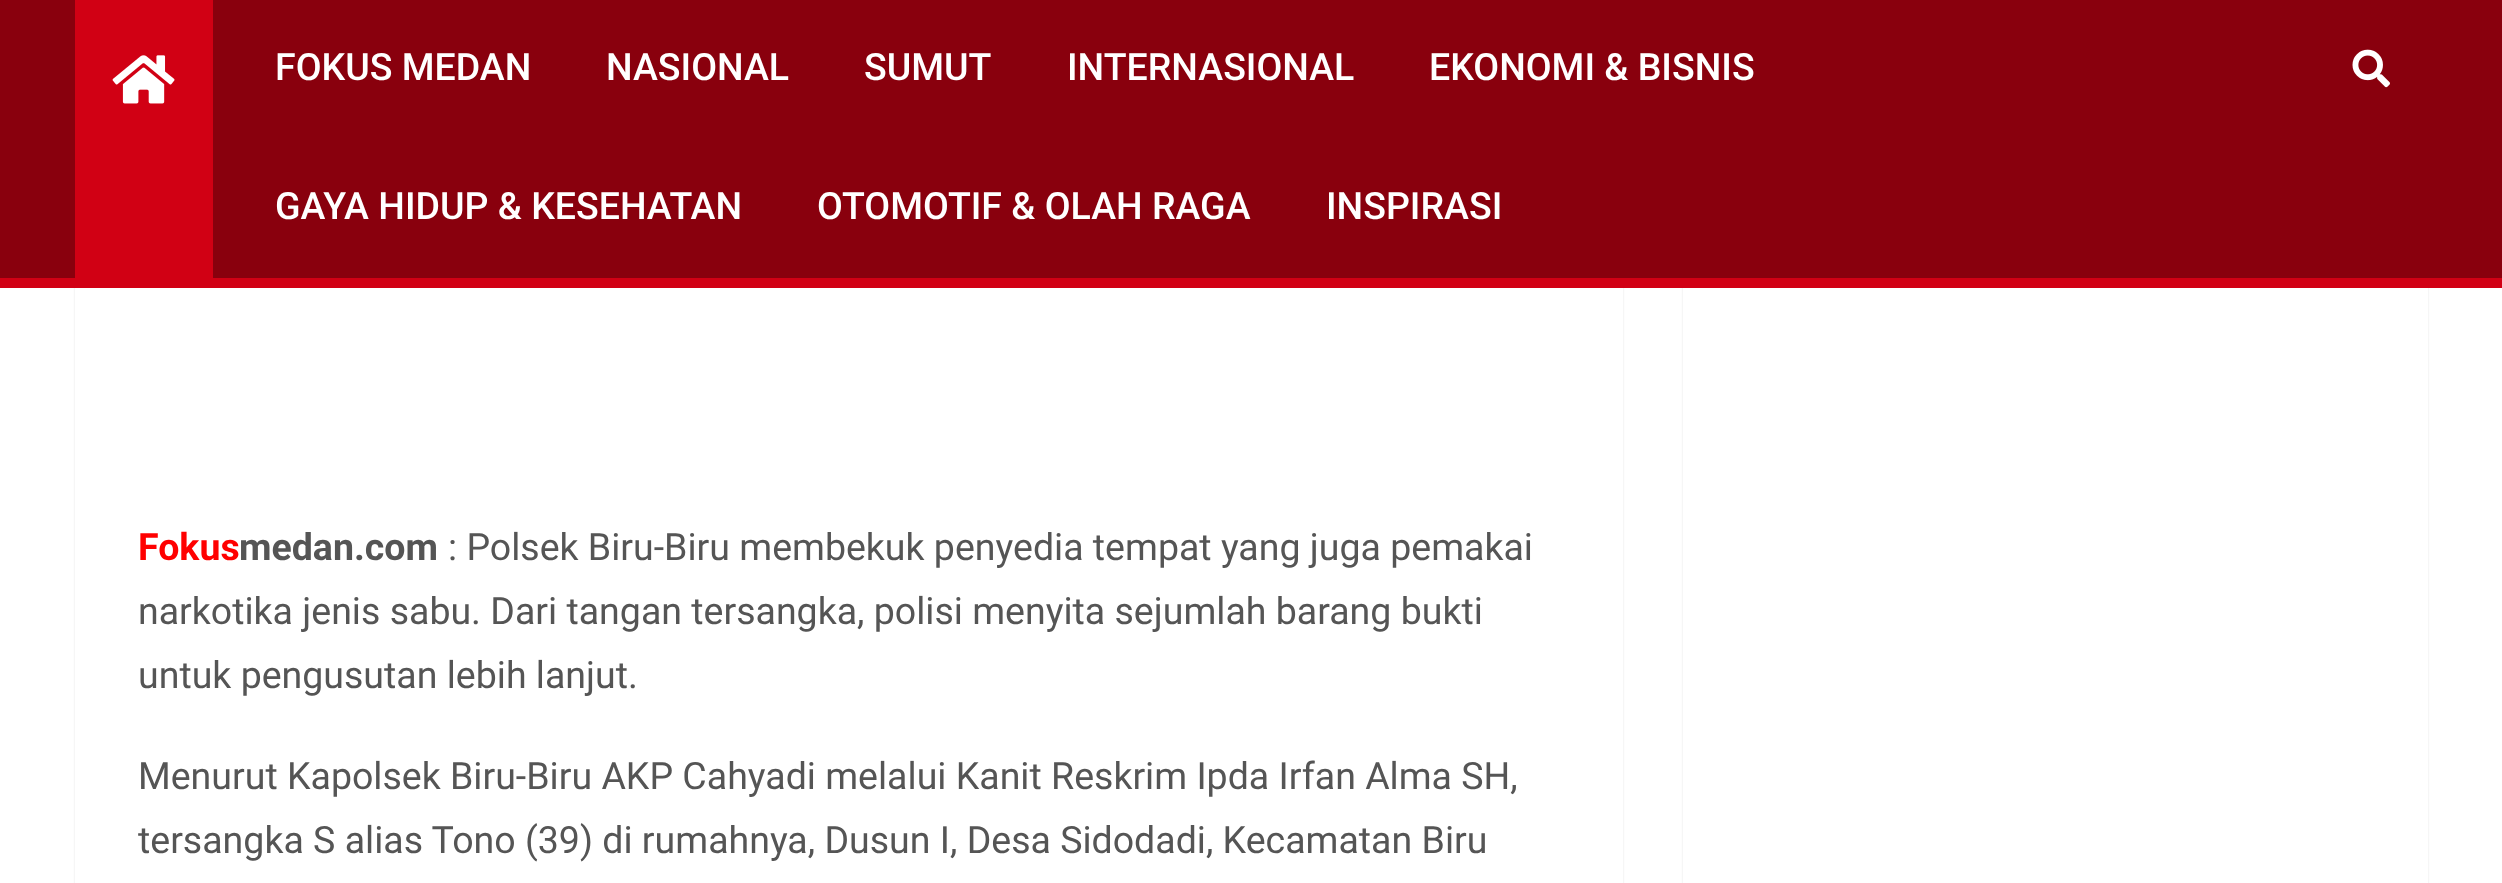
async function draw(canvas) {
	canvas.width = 2502;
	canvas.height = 883;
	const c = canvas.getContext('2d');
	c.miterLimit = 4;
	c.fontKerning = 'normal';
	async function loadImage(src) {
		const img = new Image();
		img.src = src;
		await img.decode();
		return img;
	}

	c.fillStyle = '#fff';
	c.fillRect(0, 0, 2502, 883);
	c.fillStyle = '#0000001a';
	c.filter = 'blur(1px)';
	c.beginPath();
	c.rect(75, -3, 1548, 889);
	c.fill();
	c.filter = 'none';
	c.filter = 'blur(1px)';
	c.beginPath();
	c.rect(1683, 28, 745, 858);
	c.fill();
	c.filter = 'none';
	for (const [x, y, w, h, color] of [
		[0, 0, 2502, 278, '#89000d'],
		[0, 278, 2502, 10, '#d10014'],
		[75, 0, 138, 278, '#d10014'],
	]) {
		c.fillStyle = color;
		c.fillRect(x, y, w, h);
	}
	c.drawImage(await loadImage('img1.png'), 112, 55, 63, 49);
	c.font = '500 37.5px Roboto';
	c.fillStyle = '#fff';
	for (const [text, x, y] of [
		['FOKUS MEDAN', 275, 80],
		['NASIONAL', 606, 80],
		['SUMUT', 864, 80],
		['INTERNASIONAL', 1067, 80],
		['EKONOMI & BISNIS', 1429, 80],
		['GAYA HIDUP & KESEHATAN', 275, 219],
		['OTOMOTIF & OLAH RAGA', 817, 219],
		['INSPIRASI', 1326, 219],
	]) {
		c.fillText(text, x, y);
	}
	c.drawImage(await loadImage('img2.png'), 2352, 49, 38, 39);
	c.fillRect(75, 288, 1548, 595);
	c.font = 'bold 37.5px Roboto';
	c.fillStyle = '#f00';
	c.fillText('Fokus', 138, 560);
	c.fillStyle = '#555';
	c.fillText('medan.com', 239, 560);
	c.font = '37.5px Roboto';
	for (const [text, x, y] of [
		[': Polsek Biru-Biru membekuk penyedia tempat yang juga pemakai', 448, 560],
		['narkotika jenis sabu. Dari tangan tersangka, polisi menyita sejumlah barang bukti', 138, 624],
		['untuk pengusutan lebih lanjut.', 138, 688],
		['Menurut Kapolsek Biru-Biru AKP Cahyadi melalui Kanit Reskrim Ipda Irfan Alma SH,', 138, 789],
	]) {
		c.fillText(text, x, y);
	}
	c.save();
	c.beginPath();
	c.rect(138, 0, 1422, 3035);
	c.clip();
	c.fillText('tersangka S alias Tono (39) di rumahnya, Dusun I, Desa Sidodadi, Kecamatan Biru', 138, 853);
	c.restore();
	c.fillStyle = '#fff';
	c.fillRect(1683, 288, 745, 595);
}

draw(document.querySelector('canvas'));
